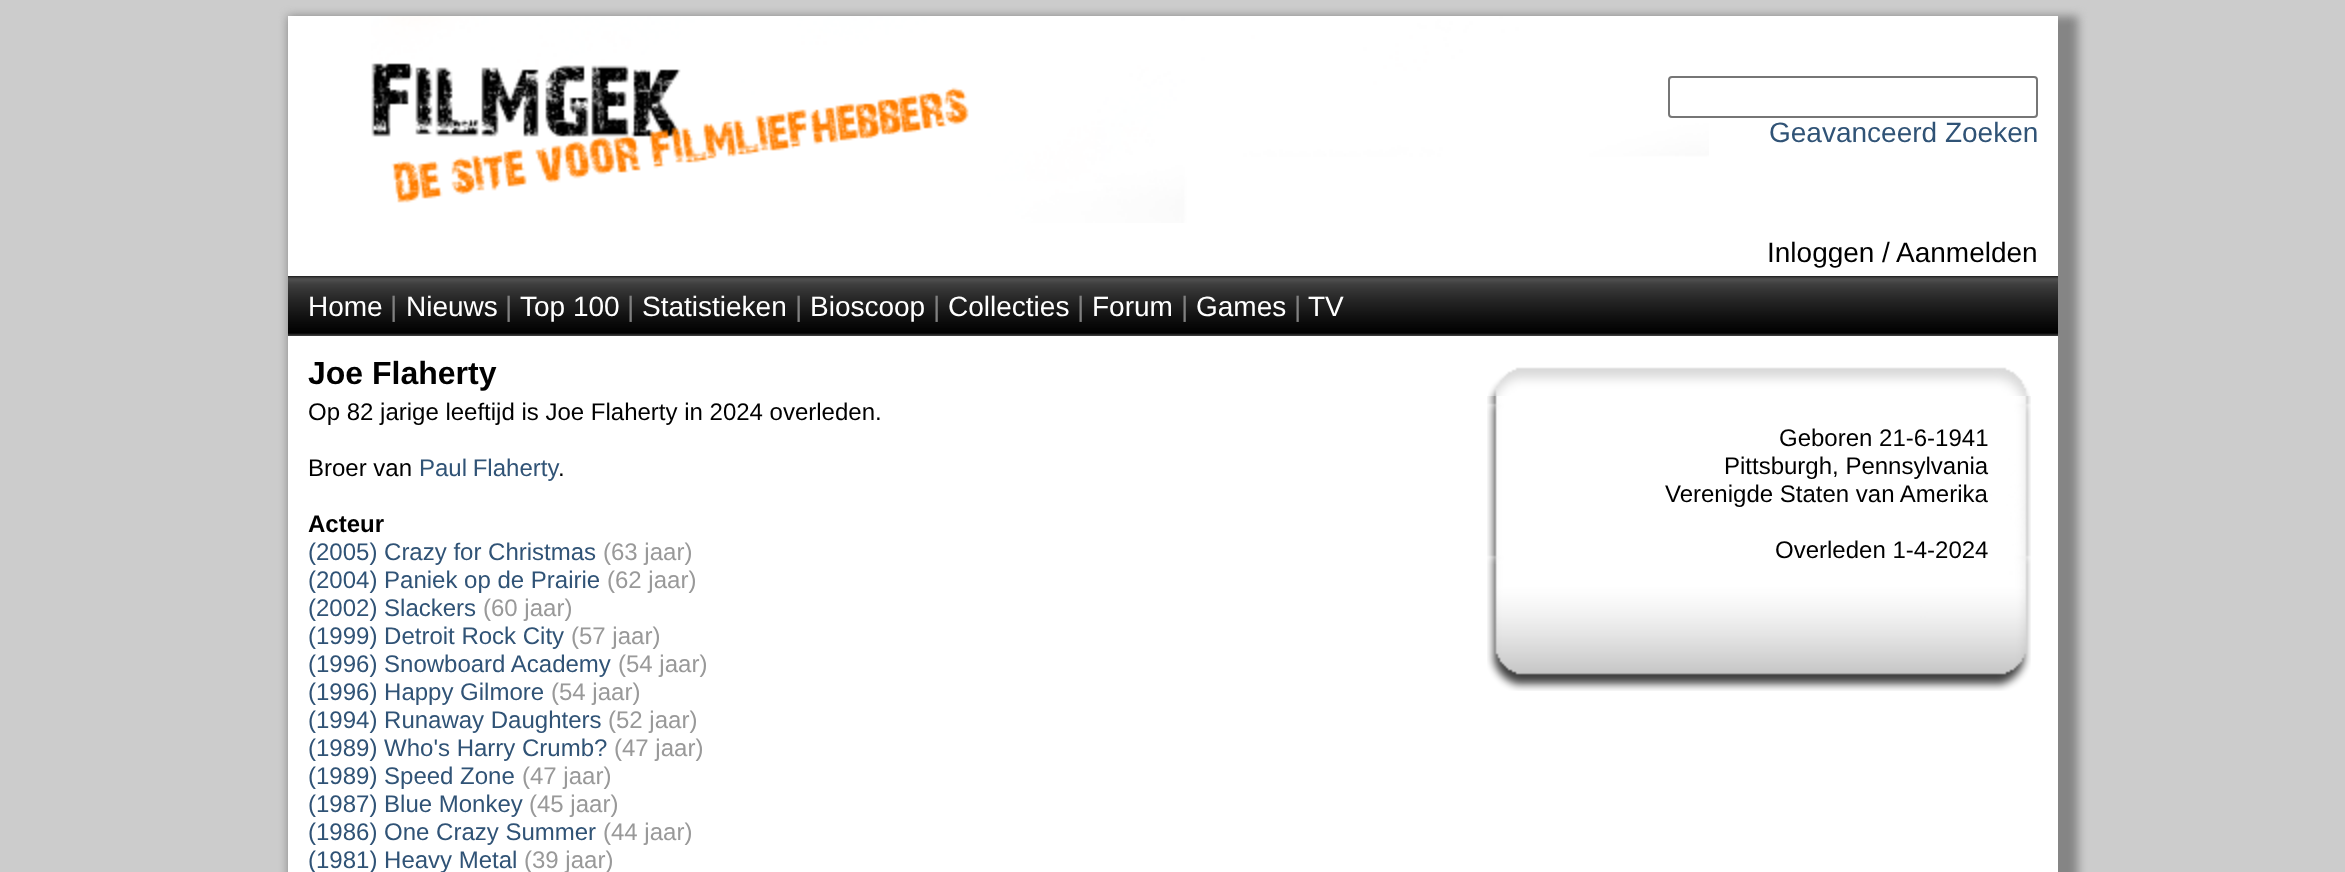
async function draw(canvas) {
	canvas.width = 2345;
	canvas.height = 872;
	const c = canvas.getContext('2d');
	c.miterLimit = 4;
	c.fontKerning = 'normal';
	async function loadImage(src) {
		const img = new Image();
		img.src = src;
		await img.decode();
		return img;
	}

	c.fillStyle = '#ccc';
	c.fillRect(0, 0, 2345, 872);
	c.fillStyle = '#858585';
	c.filter = 'blur(5px)';
	c.beginPath();
	c.rect(288, 16, 1790, 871);
	c.fill();
	c.filter = 'none';
	c.fillStyle = '#fff';
	c.fillRect(288, 16, 1770, 856);
	c.drawImage(await loadImage('img1.png'), 371, 16, 1338, 207);
	c.beginPath();
	c.roundRect(1669, 77, 368, 40, 3);
	c.strokeStyle = '#767676';
	c.lineWidth = 2;
	c.stroke();
	c.font = '28px Liberation Sans';
	c.fillStyle = '#305376';
	c.fillText('Geavanceerd Zoeken', 1769, 142);
	c.fillStyle = '#000';
	for (const [text, x, y] of [
		['Inloggen', 1767, 262],
		['/', 1882, 262],
		['Aanmelden', 1896, 262],
	]) {
		c.fillText(text, x, y);
	}
	c.drawImage(await loadImage('img2.png'), 288, 276, 1770, 60);
	c.fillStyle = '#fff';
	c.fillText('Home', 308, 316);
	c.fillStyle = '#808080';
	c.fillText('|', 390, 316);
	c.fillStyle = '#fff';
	c.fillText('Nieuws', 406, 316);
	c.fillStyle = '#808080';
	c.fillText('|', 505, 316);
	c.fillStyle = '#fff';
	c.fillText('Top 100', 520, 316);
	c.fillStyle = '#808080';
	c.fillText('|', 627, 316);
	c.fillStyle = '#fff';
	c.fillText('Statistieken', 642, 316);
	c.fillStyle = '#808080';
	c.fillText('|', 795, 316);
	c.fillStyle = '#fff';
	c.fillText('Bioscoop', 810, 316);
	c.fillStyle = '#808080';
	c.fillText('|', 933, 316);
	c.fillStyle = '#fff';
	c.fillText('Collecties', 948, 316);
	c.fillStyle = '#808080';
	c.fillText('|', 1077, 316);
	c.fillStyle = '#fff';
	c.fillText('Forum', 1092, 316);
	c.fillStyle = '#808080';
	c.fillText('|', 1181, 316);
	c.fillStyle = '#fff';
	c.fillText('Games', 1196, 316);
	c.fillStyle = '#808080';
	c.fillText('|', 1294, 316);
	c.fillStyle = '#fff';
	c.fillText('TV', 1308, 316);
	c.font = 'bold 32px Liberation Sans';
	c.fillStyle = '#000';
	c.fillText('Joe Flaherty', 308, 384);
	c.font = '24px Liberation Sans';
	c.fillText('Op 82 jarige leeftijd is Joe Flaherty in 2024 overleden.', 308, 420);
	c.fillText('Broer van', 308, 476);
	c.wordSpacing = '-1px';
	c.fillStyle = '#305376';
	c.fillText('Paul Flaherty', 419, 476);
	c.wordSpacing = '0px';
	c.fillStyle = '#000';
	c.fillText('.', 558, 476);
	c.font = 'bold 24px Liberation Sans';
	c.fillText('Acteur', 308, 532);
	c.font = '24px Liberation Sans';
	c.fillStyle = '#305376';
	c.fillText('(2005) Crazy for Christmas', 308, 560);
	c.fillStyle = '#999';
	c.fillText('(63 jaar)', 603, 560);
	c.fillStyle = '#305376';
	c.fillText('(2004) Paniek op de Prairie', 308, 588);
	c.fillStyle = '#999';
	c.fillText('(62 jaar)', 607, 588);
	c.fillStyle = '#305376';
	c.fillText('(2002) Slackers', 308, 616);
	c.fillStyle = '#999';
	c.fillText('(60 jaar)', 483, 616);
	c.fillStyle = '#305376';
	c.fillText('(1999) Detroit Rock City', 308, 644);
	c.fillStyle = '#999';
	c.fillText('(57 jaar)', 571, 644);
	c.fillStyle = '#305376';
	c.fillText('(1996) Snowboard Academy', 308, 672);
	c.fillStyle = '#999';
	c.fillText('(54 jaar)', 618, 672);
	c.fillStyle = '#305376';
	c.fillText('(1996) Happy Gilmore', 308, 700);
	c.fillStyle = '#999';
	c.fillText('(54 jaar)', 551, 700);
	c.fillStyle = '#305376';
	c.fillText('(1994) Runaway Daughters', 308, 728);
	c.fillStyle = '#999';
	c.fillText('(52 jaar)', 608, 728);
	c.fillStyle = '#305376';
	c.fillText('(1989) Who\'s Harry Crumb?', 308, 756);
	c.fillStyle = '#999';
	c.fillText('(47 jaar)', 614, 756);
	c.fillStyle = '#305376';
	c.fillText('(1989) Speed Zone', 308, 784);
	c.fillStyle = '#999';
	c.fillText('(47 jaar)', 522, 784);
	c.fillStyle = '#305376';
	c.fillText('(1987) Blue Monkey', 308, 812);
	c.fillStyle = '#999';
	c.fillText('(45 jaar)', 529, 812);
	c.fillStyle = '#305376';
	c.fillText('(1986) One Crazy Summer', 308, 840);
	c.fillStyle = '#999';
	c.fillText('(44 jaar)', 603, 840);
	c.fillStyle = '#305376';
	c.fillText('(1981) Heavy Metal', 308, 868);
	c.fillStyle = '#999';
	c.fillText('(39 jaar)', 524, 868);
	c.drawImage(await loadImage('img3.png'), 1488, 367, 542, 29);
	c.drawImage(await loadImage('img4.png'), 1487, 396, 544, 168);
	c.fillStyle = '#000';
	for (const [text, x, y] of [
		['Geboren 21-6-1941', 1779, 446],
		['Pittsburgh, Pennsylvania', 1724, 474],
		['Verenigde Staten van Amerika', 1665, 502],
		['Overleden 1-4-2024', 1775, 558],
	]) {
		c.fillText(text, x, y);
	}
	c.drawImage(await loadImage('img5.png'), 1487, 564, 544, 127);
}

draw(document.querySelector('canvas'));
